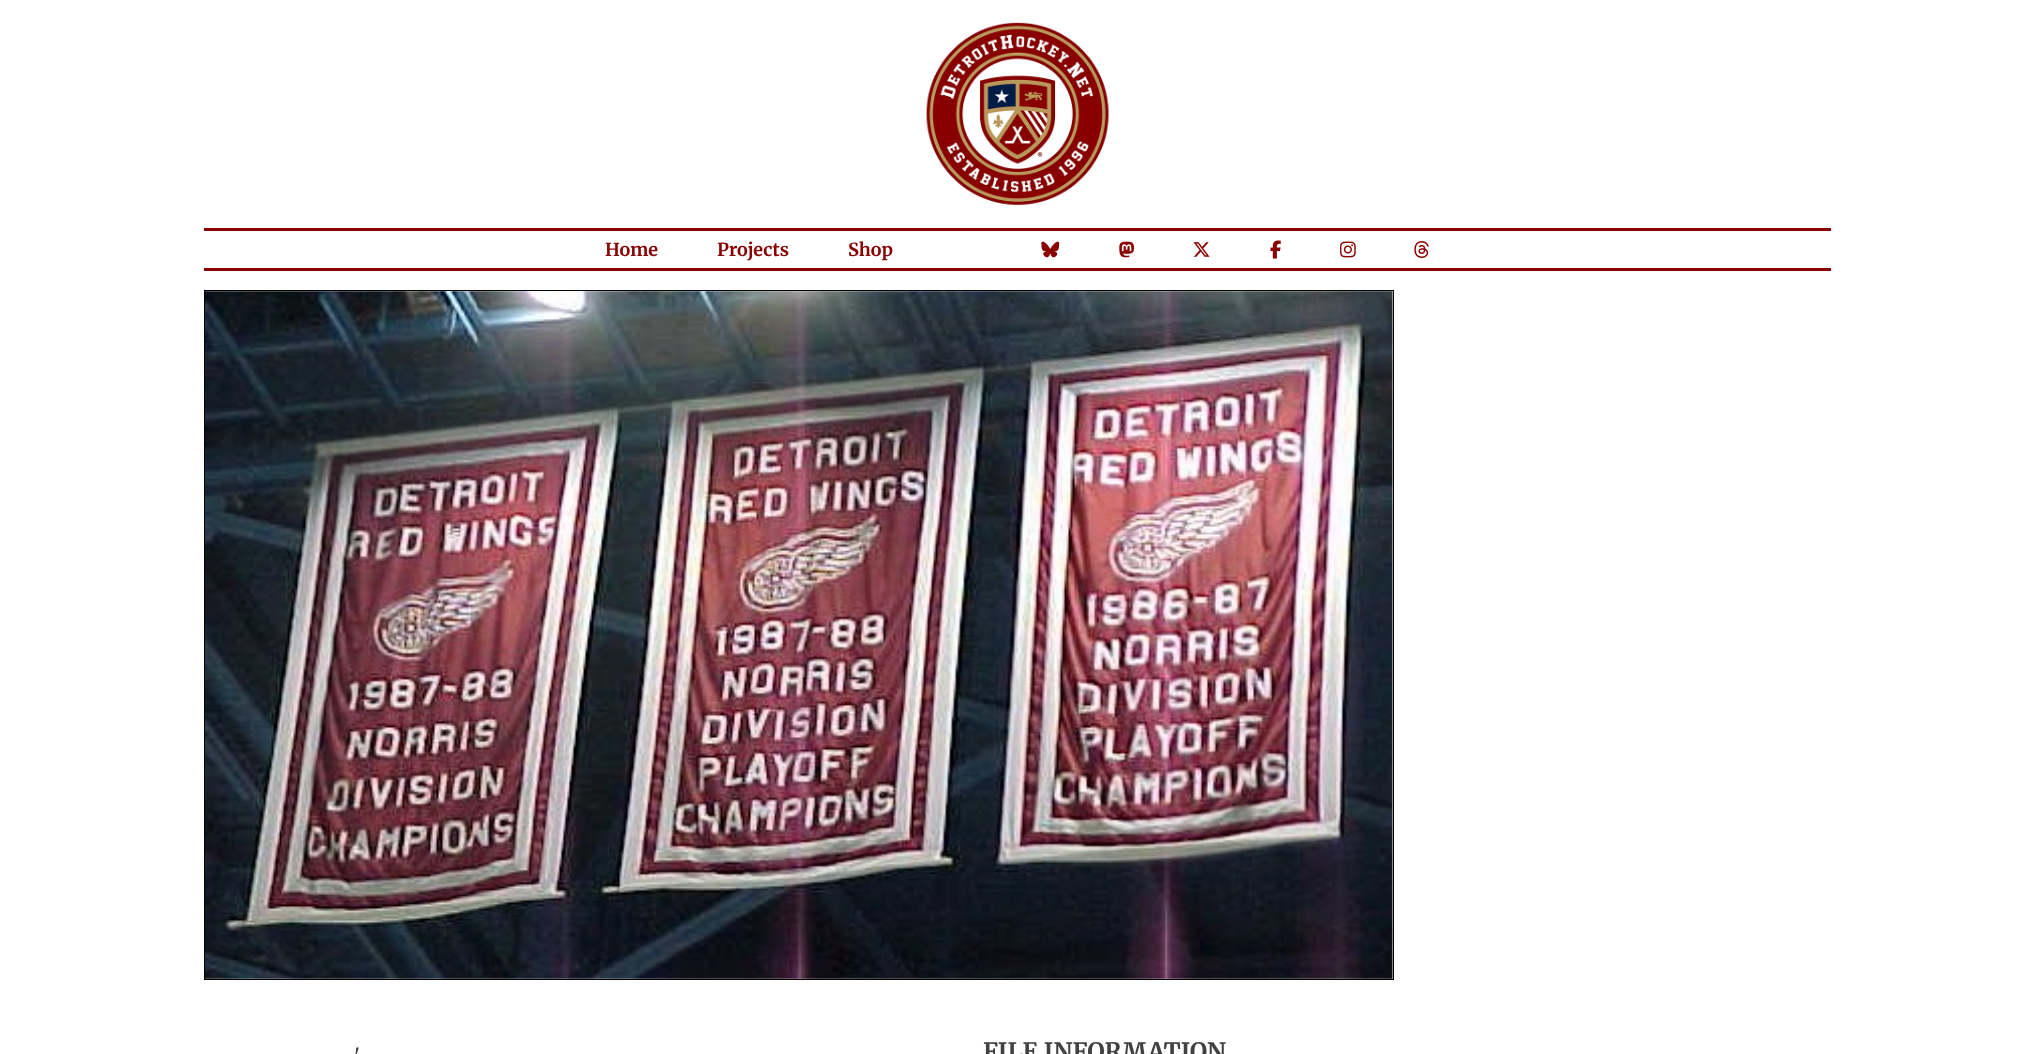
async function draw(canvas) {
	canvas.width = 2035;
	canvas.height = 1054;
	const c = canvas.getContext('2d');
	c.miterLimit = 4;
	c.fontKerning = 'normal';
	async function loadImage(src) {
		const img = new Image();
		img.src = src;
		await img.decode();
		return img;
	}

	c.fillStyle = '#fff';
	c.fillRect(0, 0, 2035, 1054);
	c.drawImage(await loadImage('img1.png'), 926, 22, 184, 184);
	c.fillStyle = '#800';
	c.fillRect(204, 228, 1627, 3);
	c.fillRect(204, 268, 1627, 3);
	c.font = 'bold 18px Merriweather';
	for (const [text, x, y] of [
		['Home', 605, 256],
		['Projects', 717, 256],
		['Shop', 848, 256],
	]) {
		c.fillText(text, x, y);
	}
	c.drawImage(await loadImage('img2.png'), 1041, 241, 19, 17);
	c.drawImage(await loadImage('img3.png'), 1119, 241, 15, 17);
	c.drawImage(await loadImage('img4.png'), 1193, 242, 17, 15);
	c.drawImage(await loadImage('img5.png'), 1270, 240, 11, 19);
	c.drawImage(await loadImage('img6.png'), 1340, 241, 16, 17);
	c.drawImage(await loadImage('img7.png'), 1414, 241, 15, 17);
	c.strokeStyle = '#000';
	c.strokeRect(204.5, 290.5, 1189, 689);
	c.drawImage(await loadImage('img8.png'), 205, 291, 1188, 688);
	c.font = '20px Merriweather';
	c.fillStyle = '#414141';
	c.fillText('\'', 354, 1064);
	c.font = 'bold 24px Merriweather';
	c.fillText('FILE INFORMATION', 983, 1060);
}

draw(document.querySelector('canvas'));
